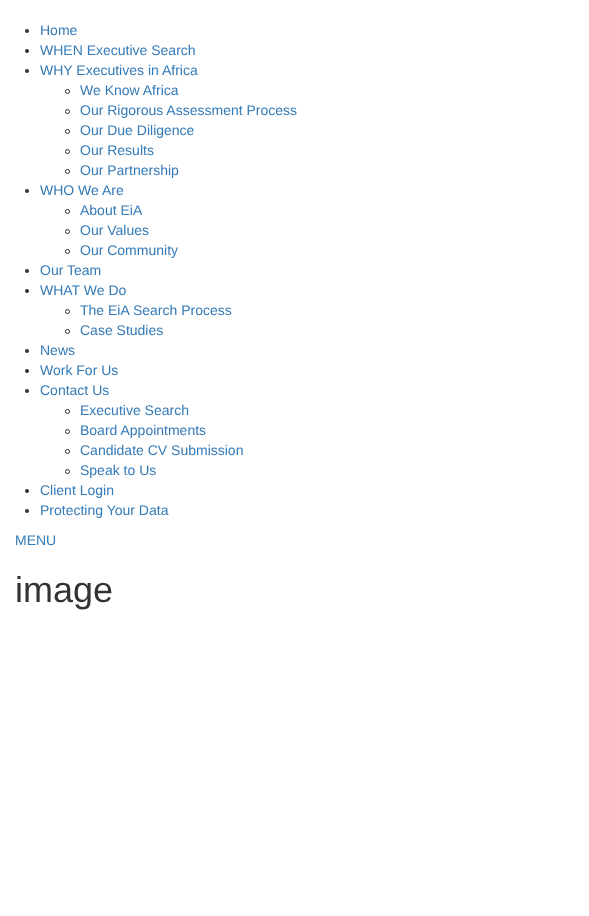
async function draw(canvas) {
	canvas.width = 589;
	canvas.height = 916;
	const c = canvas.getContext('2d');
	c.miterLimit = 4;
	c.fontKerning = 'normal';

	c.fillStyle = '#fff';
	c.fillRect(0, 0, 589, 916);
	c.fillStyle = '#333';
	c.beginPath();
	c.arc(27, 31, 2, 0, 2 * Math.PI);
	c.fill();
	c.font = '14px Liberation Sans';
	c.fillStyle = '#337ab7';
	c.fillText('Home', 40, 35);
	c.fillStyle = '#333';
	c.beginPath();
	c.arc(27, 51, 2, 0, 2 * Math.PI);
	c.fill();
	c.fillStyle = '#337ab7';
	c.fillText('WHEN Executive Search', 40, 55);
	c.fillStyle = '#333';
	c.beginPath();
	c.arc(27, 71, 2, 0, 2 * Math.PI);
	c.fill();
	c.fillStyle = '#337ab7';
	c.fillText('WHY Executives in Africa', 40, 75);
	c.beginPath();
	c.arc(67.5, 91.5, 2, 0, 2 * Math.PI);
	c.strokeStyle = '#333';
	c.stroke();
	c.fillText('We Know Africa', 80, 95);
	c.beginPath();
	c.arc(67.5, 111.5, 2, 0, 2 * Math.PI);
	c.stroke();
	c.fillText('Our Rigorous Assessment Process', 80, 115);
	c.beginPath();
	c.arc(67.5, 131.5, 2, 0, 2 * Math.PI);
	c.stroke();
	c.fillText('Our Due Diligence', 80, 135);
	c.beginPath();
	c.arc(67.5, 151.5, 2, 0, 2 * Math.PI);
	c.stroke();
	c.fillText('Our Results', 80, 155);
	c.beginPath();
	c.arc(67.5, 171.5, 2, 0, 2 * Math.PI);
	c.stroke();
	c.fillText('Our Partnership', 80, 175);
	c.fillStyle = '#333';
	c.beginPath();
	c.arc(27, 191, 2, 0, 2 * Math.PI);
	c.fill();
	c.fillStyle = '#337ab7';
	c.fillText('WHO We Are', 40, 195);
	c.beginPath();
	c.arc(67.5, 211.5, 2, 0, 2 * Math.PI);
	c.stroke();
	c.fillText('About EiA', 80, 215);
	c.beginPath();
	c.arc(67.5, 231.5, 2, 0, 2 * Math.PI);
	c.stroke();
	c.fillText('Our Values', 80, 235);
	c.beginPath();
	c.arc(67.5, 251.5, 2, 0, 2 * Math.PI);
	c.stroke();
	c.fillText('Our Community', 80, 255);
	c.fillStyle = '#333';
	c.beginPath();
	c.arc(27, 271, 2, 0, 2 * Math.PI);
	c.fill();
	c.fillStyle = '#337ab7';
	c.fillText('Our Team', 40, 275);
	c.fillStyle = '#333';
	c.beginPath();
	c.arc(27, 291, 2, 0, 2 * Math.PI);
	c.fill();
	c.fillStyle = '#337ab7';
	c.fillText('WHAT We Do', 40, 295);
	c.beginPath();
	c.arc(67.5, 311.5, 2, 0, 2 * Math.PI);
	c.stroke();
	c.fillText('The EiA Search Process', 80, 315);
	c.beginPath();
	c.arc(67.5, 331.5, 2, 0, 2 * Math.PI);
	c.stroke();
	c.fillText('Case Studies', 80, 335);
	c.fillStyle = '#333';
	c.beginPath();
	c.arc(27, 351, 2, 0, 2 * Math.PI);
	c.fill();
	c.fillStyle = '#337ab7';
	c.fillText('News', 40, 355);
	c.fillStyle = '#333';
	c.beginPath();
	c.arc(27, 371, 2, 0, 2 * Math.PI);
	c.fill();
	c.fillStyle = '#337ab7';
	c.fillText('Work For Us', 40, 375);
	c.fillStyle = '#333';
	c.beginPath();
	c.arc(27, 391, 2, 0, 2 * Math.PI);
	c.fill();
	c.fillStyle = '#337ab7';
	c.fillText('Contact Us', 40, 395);
	c.beginPath();
	c.arc(67.5, 411.5, 2, 0, 2 * Math.PI);
	c.stroke();
	c.fillText('Executive Search', 80, 415);
	c.beginPath();
	c.arc(67.5, 431.5, 2, 0, 2 * Math.PI);
	c.stroke();
	c.fillText('Board Appointments', 80, 435);
	c.beginPath();
	c.arc(67.5, 451.5, 2, 0, 2 * Math.PI);
	c.stroke();
	c.fillText('Candidate CV Submission', 80, 455);
	c.beginPath();
	c.arc(67.5, 471.5, 2, 0, 2 * Math.PI);
	c.stroke();
	c.fillText('Speak to Us', 80, 475);
	c.fillStyle = '#333';
	c.beginPath();
	c.arc(27, 491, 2, 0, 2 * Math.PI);
	c.fill();
	c.fillStyle = '#337ab7';
	c.fillText('Client Login', 40, 495);
	c.fillStyle = '#333';
	c.beginPath();
	c.arc(27, 511, 2, 0, 2 * Math.PI);
	c.fill();
	c.fillStyle = '#337ab7';
	c.fillText('Protecting Your Data', 40, 515);
	c.fillText('MENU', 15, 545);
	c.font = '36px Liberation Sans';
	c.fillStyle = '#333';
	c.fillText('image', 15, 602);
}

draw(document.querySelector('canvas'));
